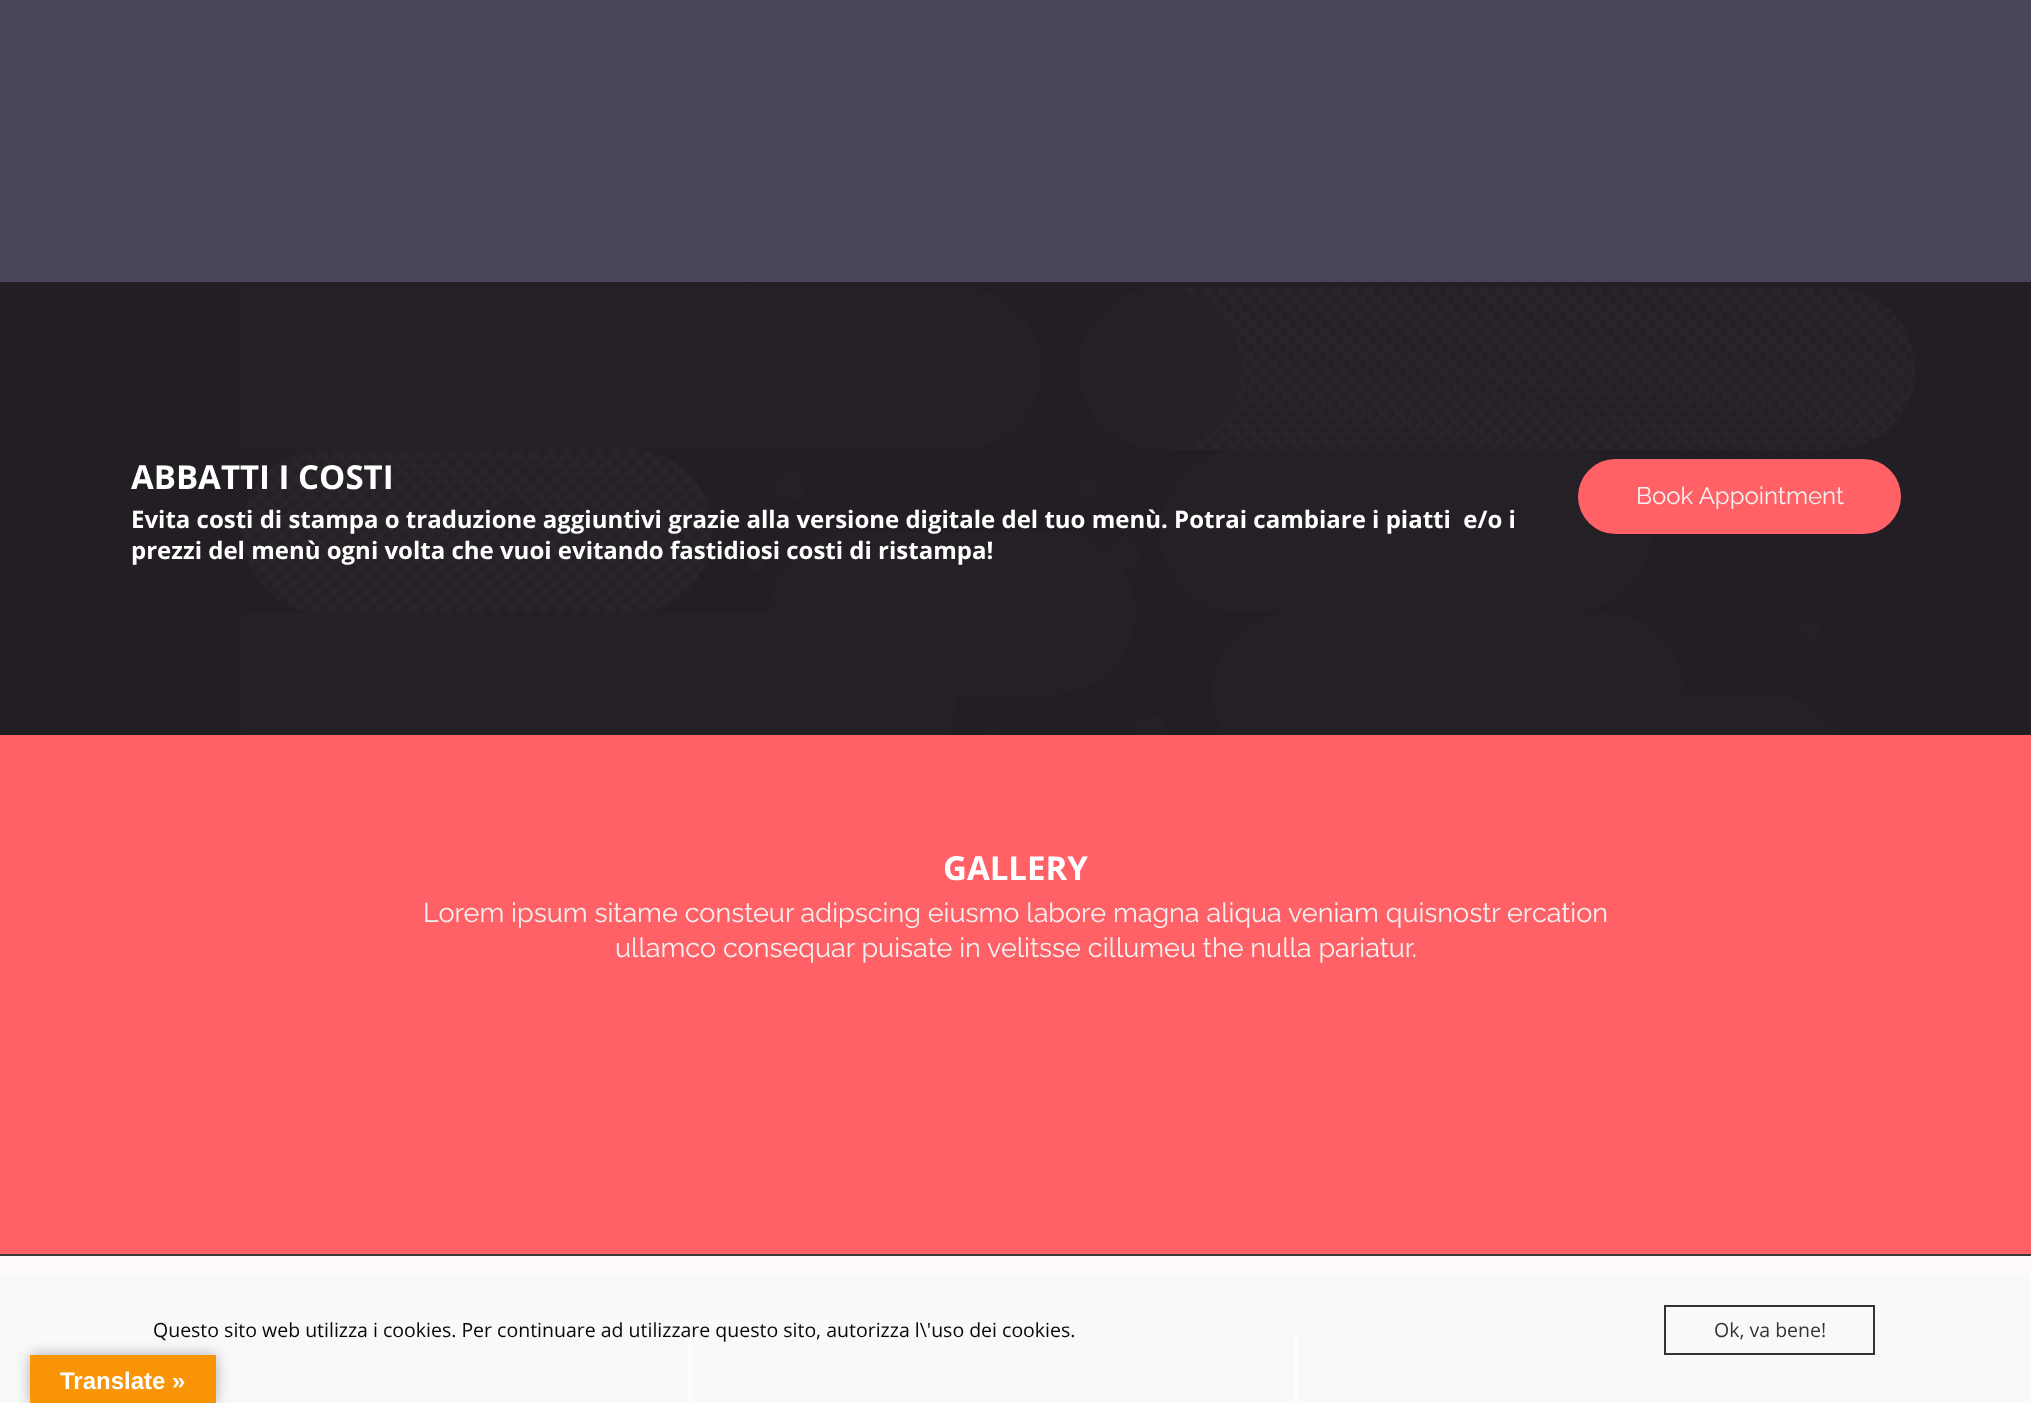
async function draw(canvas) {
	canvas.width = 2031;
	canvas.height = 1403;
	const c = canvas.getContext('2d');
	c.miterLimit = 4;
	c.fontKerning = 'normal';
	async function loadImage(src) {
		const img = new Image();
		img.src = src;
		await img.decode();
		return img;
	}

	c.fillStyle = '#231e24';
	c.fillRect(0, 0, 2031, 1403);
	c.drawImage(await loadImage('img1.png'), 242, 282, 1673, 453);
	c.fillStyle = '#4a4559';
	c.fillRect(0, 0, 2031, 282);
	c.font = 'bold 33px Open Sans';
	c.fillStyle = '#fff';
	c.fillText('ABBATTI I COSTI', 131, 489);
	c.fillStyle = '#ff6166';
	c.beginPath();
	c.roundRect(1578, 459, 323, 75, 37.5);
	c.fill();
	c.font = '24px Raleway';
	c.fillStyle = '#f2f2f2';
	c.fillText('Book Appointment', 1636, 504);
	c.font = 'bold 24px Open Sans';
	c.fillStyle = '#fff';
	c.fillText('Evita costi di stampa o traduzione aggiuntivi grazie alla versione digitale del tuo menù. Potrai cambiare i piatti  e/o i', 131, 528);
	c.fillText('prezzi del menù ogni volta che vuoi evitando fastidiosi costi di ristampa!', 131, 559);
	c.fillStyle = '#ff6166';
	c.fillRect(0, 735, 2031, 540);
	c.font = 'bold 33px Open Sans';
	c.fillStyle = '#fff';
	c.fillText('GALLERY', 943, 880);
	c.font = '27px Raleway';
	c.fillStyle = '#f2f2f2';
	c.fillText('Lorem ipsum sitame consteur adipscing eiusmo labore magna aliqua veniam quisnostr ercation', 423, 922);
	c.fillText('ullamco consequar puisate in velitsse cillumeu the nulla pariatur.', 615, 957);
	for (const [x, y, w, h, color] of [
		[0, 1275, 2031, 128, '#4a4559'],
		[689, 1335, 2, 68, '#d7d7d7'],
		[1295, 1335, 2, 68, '#d7d7d7'],
		[0, 1256, 2031, 147, '#fffffff7'],
		[0, 1254, 2031, 2, '#393939'],
	]) {
		c.fillStyle = color;
		c.fillRect(x, y, w, h);
	}
	c.font = '19.5px Open Sans';
	c.fillStyle = '#070708';
	c.fillText('Questo sito web utilizza i cookies. Per continuare ad utilizzare questo sito, autorizza l\\\'uso dei cookies.', 153, 1337);
	c.strokeStyle = '#343434';
	c.lineWidth = 2;
	c.strokeRect(1665, 1306, 209, 48);
	c.fillStyle = '#343434';
	c.fillText('Ok, va bene!', 1714, 1337);
	c.fillStyle = '#0000004d';
	c.filter = 'blur(7px)';
	c.beginPath();
	c.rect(30, 1355, 186, 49);
	c.fill();
	c.filter = 'none';
	c.fillStyle = '#f89406';
	c.fillRect(30, 1355, 186, 48);
	c.font = 'bold 24px Liberation Sans';
	c.fillStyle = '#fff';
	c.fillText('Translate »', 60, 1389);
}

draw(document.querySelector('canvas'));
